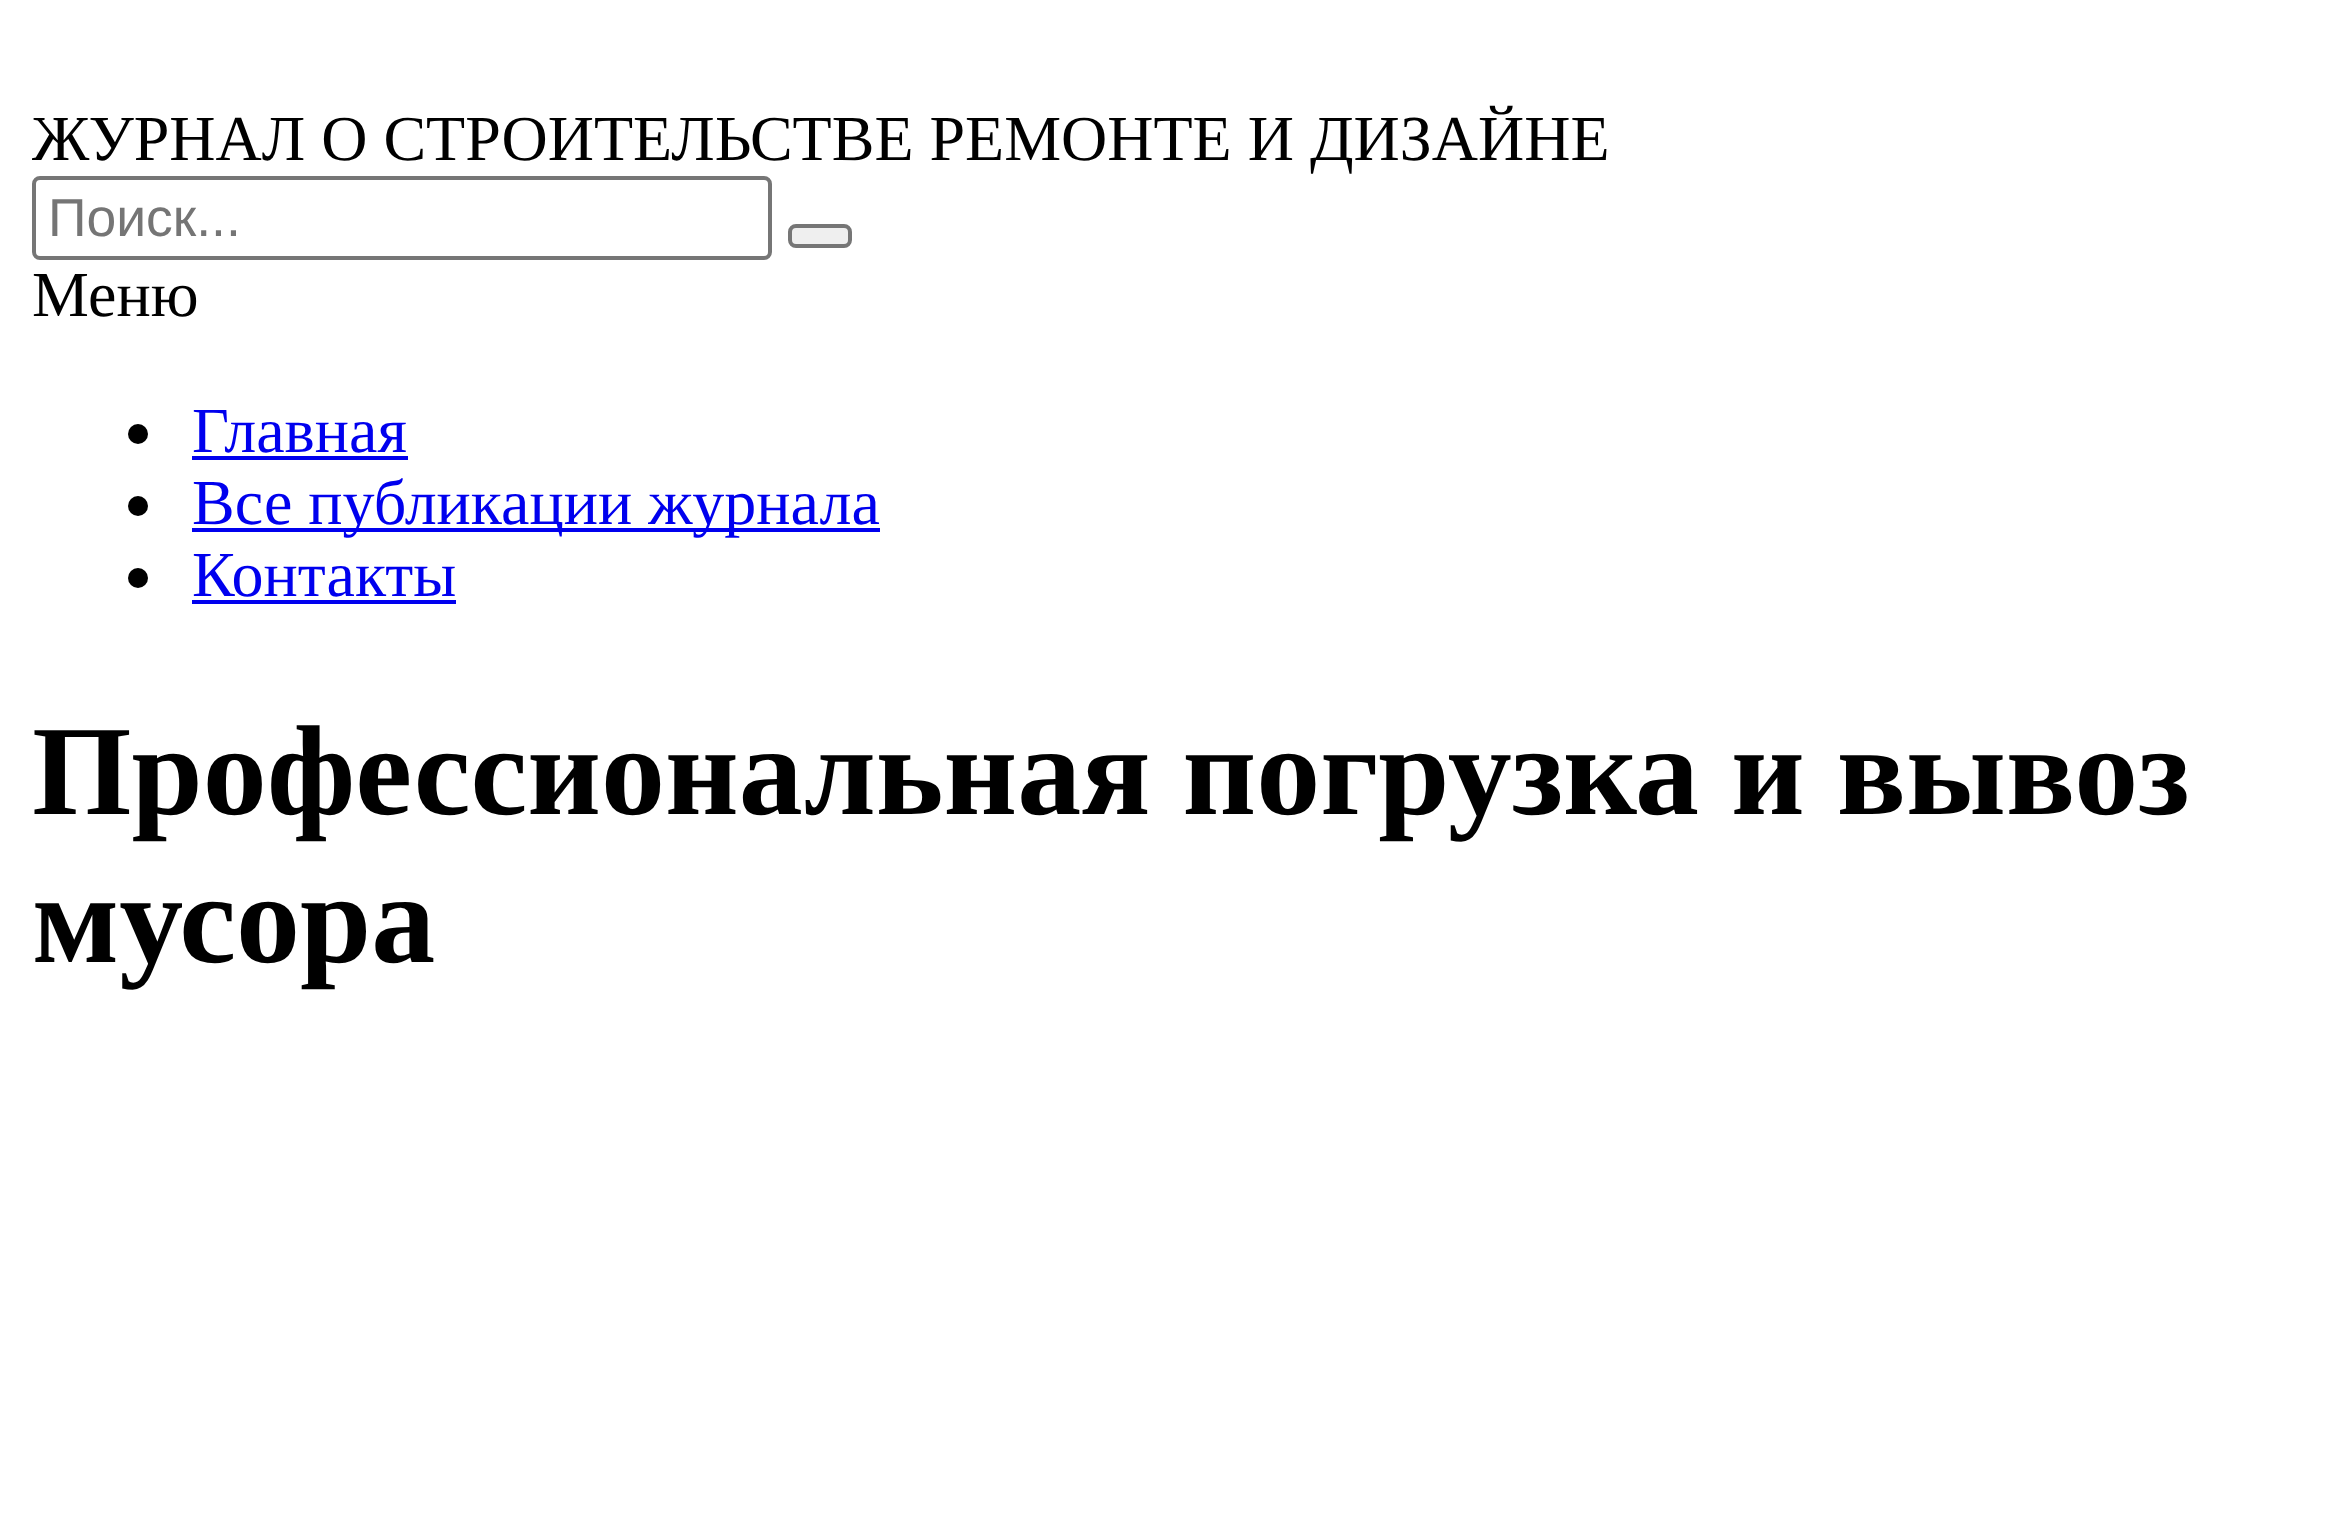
async function draw(canvas) {
	canvas.width = 2348;
	canvas.height = 1530;
	const c = canvas.getContext('2d');
	c.miterLimit = 4;
	c.fontKerning = 'normal';

	c.fillStyle = '#fff';
	c.fillRect(0, 0, 2348, 1530);
	c.font = '64px Liberation Serif';
	c.fillStyle = '#000';
	c.fillText('ЖУРНАЛ О СТРОИТЕЛЬСТВЕ РЕМОНТЕ И ДИЗАЙНЕ', 32, 160);
	c.beginPath();
	c.roundRect(34, 178, 736, 80, 6);
	c.strokeStyle = '#767676';
	c.lineWidth = 4;
	c.stroke();
	c.font = '53.5px Liberation Sans';
	c.fillStyle = '#757575';
	c.fillText('Поиск...', 48, 236);
	c.fillStyle = '#efefef';
	c.beginPath();
	c.roundRect(790, 226, 60, 20, 6);
	c.fill();
	c.stroke();
	c.font = '64px Liberation Serif';
	c.fillStyle = '#000';
	c.fillText('Меню', 32, 316);
	c.beginPath();
	c.arc(138, 434, 10, 0, 2 * Math.PI);
	c.fill();
	c.fillStyle = '#00e';
	c.fillText('Главная', 192, 452);
	c.fillRect(192, 456, 216, 4);
	c.fillStyle = '#000';
	c.beginPath();
	c.arc(138, 506, 10, 0, 2 * Math.PI);
	c.fill();
	c.fillStyle = '#00e';
	c.fillRect(192, 528, 688, 4);
	c.fillText('Все публикации журнала', 192, 524);
	c.fillStyle = '#000';
	c.beginPath();
	c.arc(138, 578, 10, 0, 2 * Math.PI);
	c.fill();
	c.fillStyle = '#00e';
	c.fillText('Контакты', 192, 596);
	c.fillRect(192, 600, 264, 4);
	c.font = 'bold 128px Liberation Serif';
	c.fillStyle = '#000';
	c.fillText('Профессиональная погрузка и вывоз', 32, 814);
	c.fillText('мусора', 32, 962);
}

draw(document.querySelector('canvas'));
